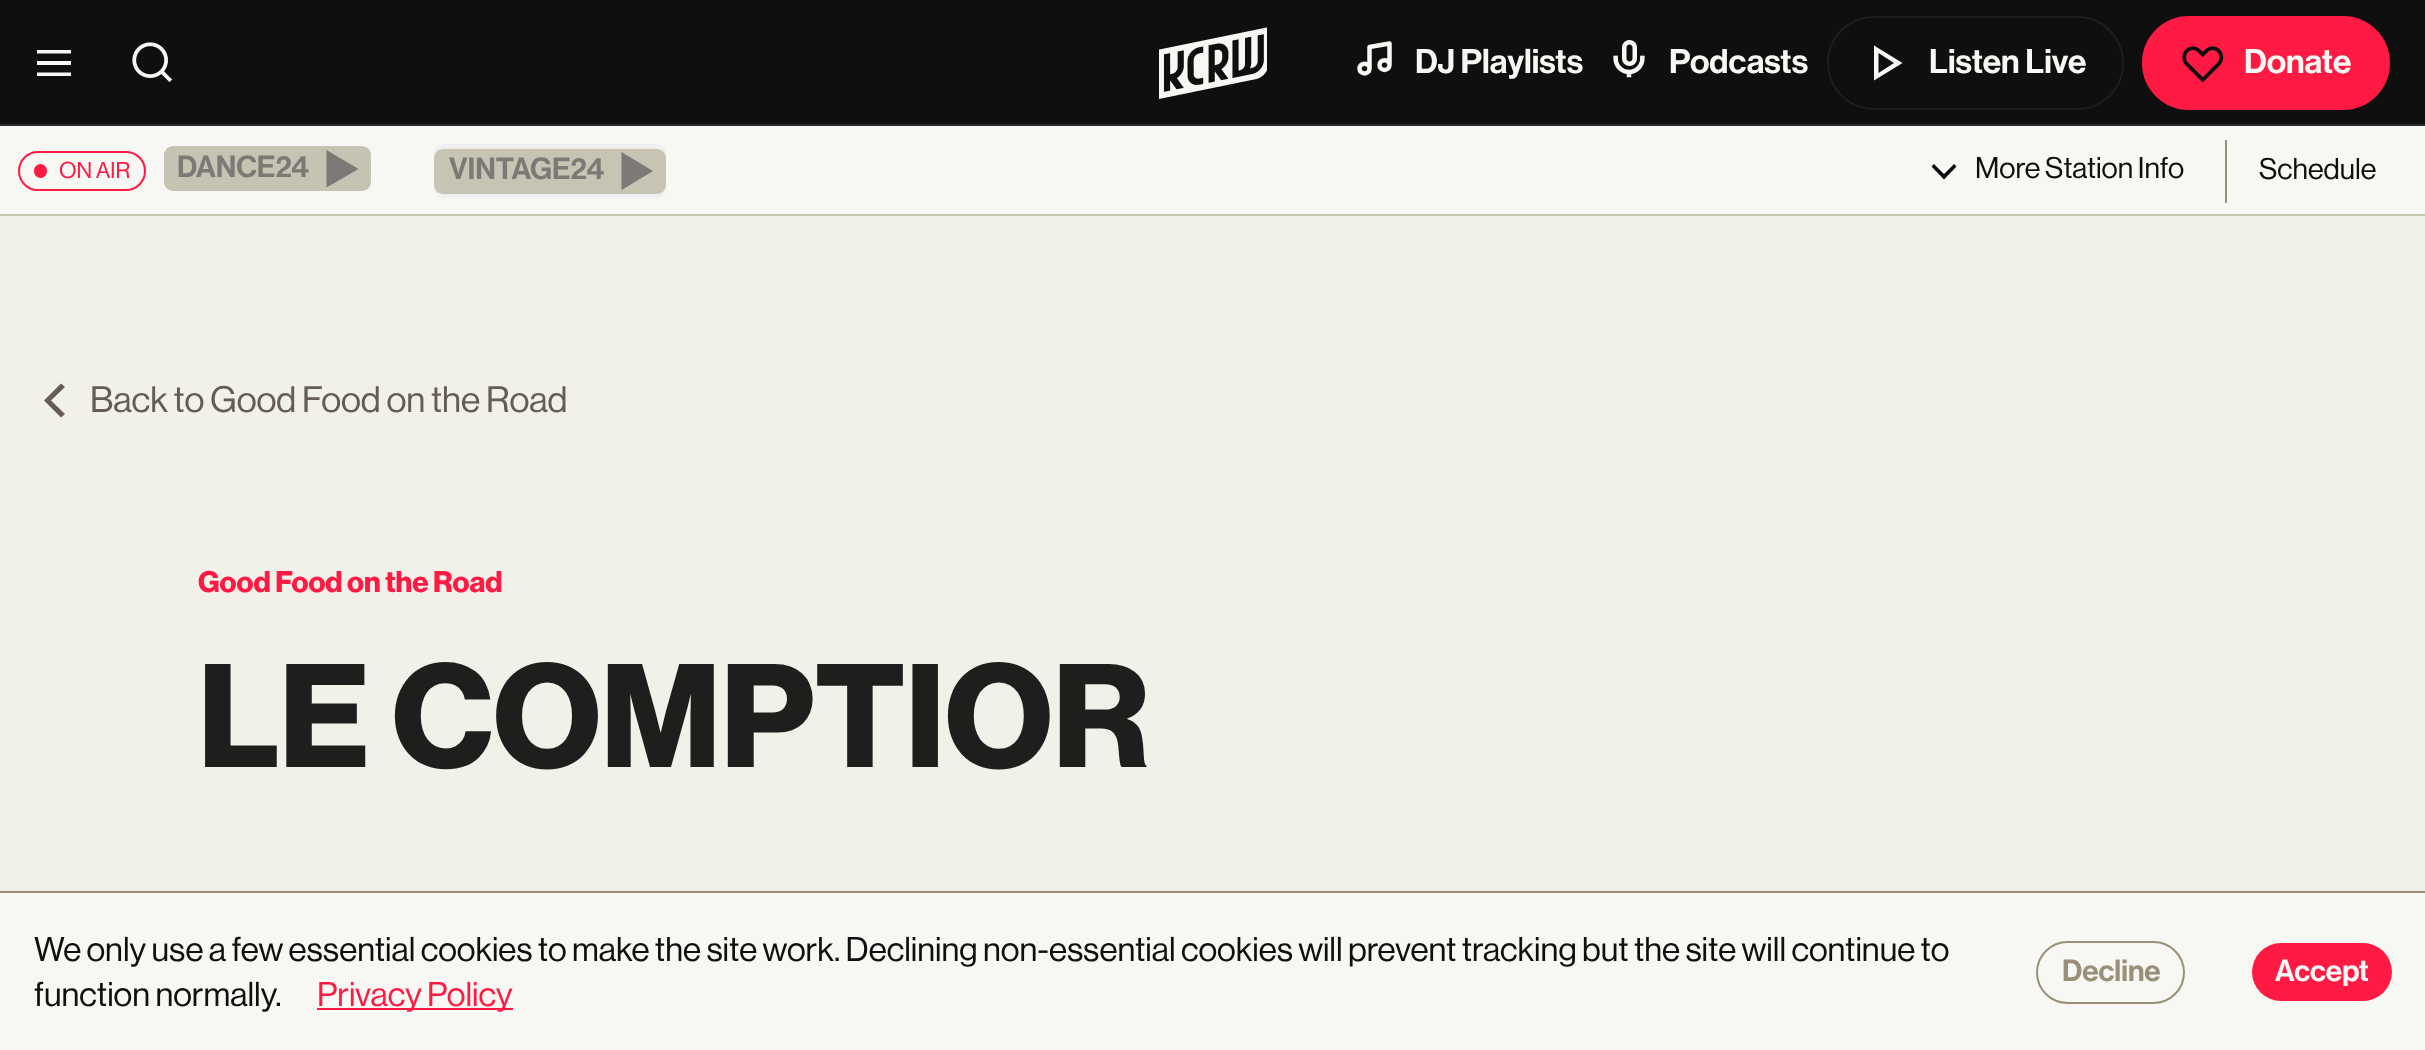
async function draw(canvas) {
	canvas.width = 2425;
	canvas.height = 1050;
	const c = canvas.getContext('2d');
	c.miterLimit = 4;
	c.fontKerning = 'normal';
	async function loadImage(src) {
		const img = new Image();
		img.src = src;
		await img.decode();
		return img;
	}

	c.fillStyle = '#f1f1ea';
	c.fillRect(0, 0, 2425, 1050);
	c.fillStyle = '#0f0f0f';
	c.fillRect(0, 0, 2425, 124);
	c.fillStyle = '#2b2b2a';
	c.fillRect(0, 124, 2425, 2);
	c.fillStyle = '#f7f7f3';
	c.beginPath();
	c.moveTo(37, 50);
	c.lineTo(71, 50);
	c.lineTo(71, 53.5);
	c.lineTo(37, 53.5);
	c.closePath();
	c.moveTo(37, 61);
	c.lineTo(71, 61);
	c.lineTo(71, 65);
	c.lineTo(37, 65);
	c.closePath();
	c.moveTo(71, 72.5);
	c.lineTo(37, 72.5);
	c.lineTo(37, 76);
	c.lineTo(71, 76);
	c.closePath();
	c.fill('evenodd');
	c.drawImage(await loadImage('img1.png'), 132, 42, 40, 40);
	c.drawImage(await loadImage('img2.png'), 1159, 27, 108, 72);
	c.beginPath();
	c.moveTo(1369.5, 68.5);
	c.lineTo(1369.5, 47);
	c.lineTo(1389.5, 43.5);
	c.lineTo(1389.5, 65);
	c.moveTo(1369.5, 68.5);
	c.bezierCurveTo(1369.5, 75, 1359.5, 75, 1359.5, 68.5);
	c.bezierCurveTo(1359.5, 62, 1369.5, 62, 1369.5, 68.5);
	c.closePath();
	c.moveTo(1389.5, 65);
	c.bezierCurveTo(1389.5, 71.5, 1379.5, 71.5, 1379.5, 65);
	c.bezierCurveTo(1379.5, 58.5, 1389.5, 58.5, 1389.5, 65);
	c.closePath();
	c.strokeStyle = '#f7f7f3';
	c.lineWidth = 4.5;
	c.lineJoin = 'round';
	c.stroke();
	c.font = '500 33.75px "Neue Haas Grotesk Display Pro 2"';
	c.fillText('DJ Playlists', 1415, 73);
	c.drawImage(await loadImage('img3.png'), 1613, 40, 32, 38);
	c.fillText('Podcasts', 1669, 73);
	c.beginPath();
	c.roundRect(1828, 17, 295, 92, 46);
	c.strokeStyle = '#201e1d';
	c.lineWidth = 2;
	c.lineJoin = 'miter';
	c.stroke();
	c.beginPath();
	c.moveTo(1874, 45.5);
	c.lineTo(1902.5, 63);
	c.lineTo(1874, 80.5);
	c.closePath();
	c.moveTo(1878.5, 53);
	c.lineTo(1878.5, 73);
	c.lineTo(1894, 63);
	c.closePath();
	c.fill('evenodd');
	c.fillText('Listen Live', 1929, 73);
	c.fillStyle = '#ff1a44';
	c.beginPath();
	c.roundRect(2143, 17, 246, 92, 46);
	c.fill();
	c.strokeStyle = '#ff1a44';
	c.stroke();
	c.drawImage(await loadImage('img4.png'), 2182, 46, 42, 37);
	c.fillStyle = '#f7f7f3';
	c.fillText('Donate', 2244, 73);
	c.fillRect(0, 126, 2425, 88);
	c.fillStyle = '#c7c4ae';
	c.fillRect(0, 214, 2425, 2);
	c.beginPath();
	c.roundRect(19, 152, 126, 38, 19);
	c.stroke();
	c.fillStyle = '#ff1a44';
	c.beginPath();
	c.roundRect(34, 164, 13, 14, 6.5);
	c.fill();
	c.font = '500 22.5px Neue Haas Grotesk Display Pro';
	c.fillText('ON AIR', 59, 178);
	c.fillStyle = '#efefef';
	c.beginPath();
	c.roundRect(164, 146, 207, 45, 9);
	c.fill();
	c.fillStyle = '#b6b19ab3';
	c.beginPath();
	c.roundRect(164, 146, 207, 45, 9);
	c.fill();
	c.font = '500 30px "Neue Haas Grotesk Display Pro 2"';
	c.fillStyle = '#7e7976';
	c.fillText('DANCE24', 177, 177);
	c.beginPath();
	c.moveTo(326.5, 150);
	c.lineTo(326.5, 187.5);
	c.lineTo(358.5, 169);
	c.closePath();
	c.fill();
	c.fillStyle = '#efefef';
	c.beginPath();
	c.roundRect(434, 144, 232, 54, 9);
	c.fill();
	c.fillStyle = '#c7c4b4';
	c.beginPath();
	c.roundRect(434, 149, 232, 45, 9);
	c.fill();
	c.fillStyle = '#7e7976';
	c.fillText('VINTAGE24', 449, 179);
	c.beginPath();
	c.moveTo(621.5, 152);
	c.lineTo(621.5, 190);
	c.lineTo(653, 171);
	c.closePath();
	c.fill();
	c.fillStyle = '#100f0f';
	c.beginPath();
	c.moveTo(1931.5, 166.5);
	c.lineTo(1934, 164);
	c.lineTo(1944, 174);
	c.lineTo(1954, 164);
	c.lineTo(1956.5, 166.5);
	c.lineTo(1944, 179.5);
	c.closePath();
	c.fill('evenodd');
	c.font = '500 29.25px Neue Haas Grotesk Display Pro';
	c.fillText('More Station Info', 1975, 178);
	c.fillStyle = '#9a9079';
	c.fillRect(2225, 140, 2, 63);
	c.fillStyle = '#100f0f';
	c.fillText('Schedule', 2259, 179);
	c.fillStyle = '#655c53';
	c.beginPath();
	c.moveTo(61, 383.5);
	c.lineTo(65, 387);
	c.lineTo(51, 400.5);
	c.lineTo(65, 414);
	c.lineTo(61, 417.5);
	c.lineTo(44, 400.5);
	c.closePath();
	c.fill('evenodd');
	c.font = '500 36px Neue Haas Grotesk Display Pro';
	c.fillText('Back to Good Food on the Road', 90, 412);
	c.font = 'bold 29.25px Neue Haas Grotesk Display Pro';
	c.fillStyle = '#ff1a44';
	c.fillText('Good Food on the Road', 198, 592);
	c.font = 'bold 144px Neue Haas Grotesk Display Pro';
	c.fillStyle = '#201e1d';
	c.fillText('LE COMPTIOR', 198, 767);
	c.fillStyle = '#67051140';
	c.filter = 'blur(4.5px)';
	c.beginPath();
	c.rect(0, 896, 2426, 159);
	c.fill();
	c.filter = 'none';
	c.fillStyle = '#f7f7f3';
	c.fillRect(0, 893, 2425, 157);
	c.fillStyle = '#9a9079';
	c.fillRect(0, 891, 2425, 2);
	c.font = '500 33.75px Neue Haas Grotesk Display Pro';
	c.fillStyle = '#100f0f';
	c.fillText('We only use a few essential cookies to make the site work. Declining non-essential cookies will prevent tracking but the site will continue to', 34, 961);
	c.fillText('function normally.', 34, 1006);
	c.fillStyle = '#ff1a44';
	c.fillRect(317, 1008, 196, 2);
	c.fillText('Privacy Policy', 317, 1006);
	c.beginPath();
	c.roundRect(2037, 942, 147, 61, 30.5);
	c.strokeStyle = '#9a9079';
	c.stroke();
	c.font = '500 30px "Neue Haas Grotesk Display Pro 2"';
	c.fillStyle = '#9a9079';
	c.fillText('Decline', 2062, 981);
	c.fillStyle = '#ff1a44';
	c.beginPath();
	c.roundRect(2252, 943, 140, 58, 29);
	c.fill();
	c.fillStyle = '#f7f7f3';
	c.fillText('Accept', 2275, 981);
}

draw(document.querySelector('canvas'));
